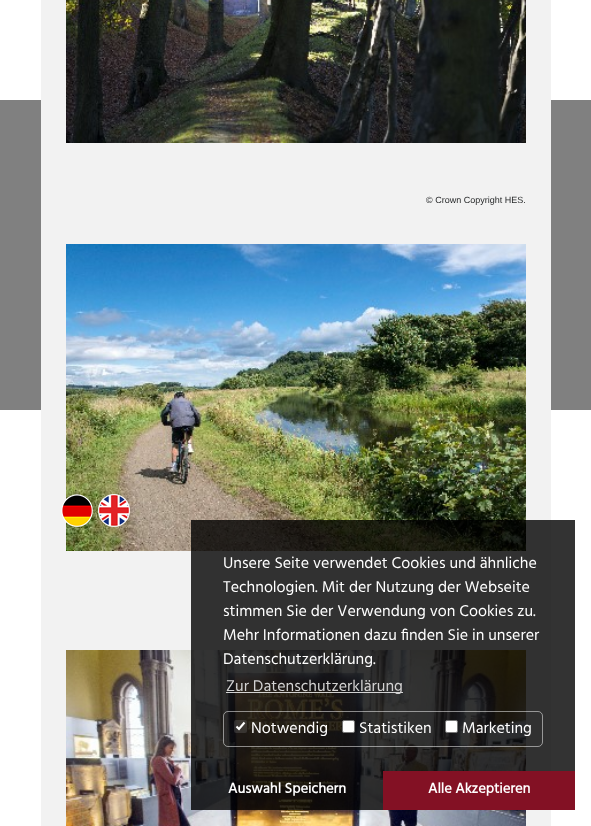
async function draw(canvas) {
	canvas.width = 591;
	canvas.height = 826;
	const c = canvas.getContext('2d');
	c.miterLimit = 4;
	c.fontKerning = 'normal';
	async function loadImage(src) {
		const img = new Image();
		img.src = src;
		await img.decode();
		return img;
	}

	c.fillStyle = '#fff';
	c.fillRect(0, 0, 591, 826);
	c.fillStyle = '#808080';
	c.fillRect(0, 100, 591, 310);
	c.fillStyle = '#f2f2f2';
	c.fillRect(41, 0, 510, 826);
	c.drawImage(await loadImage('img1.png'), 66, 0, 460, 143);
	c.font = '9px Liberation Sans';
	c.fillStyle = '#292b2c';
	c.fillText('© Crown Copyright HES.', 426, 203);
	c.drawImage(await loadImage('img2.png'), 66, 244, 460, 307);
	c.drawImage(await loadImage('img3.png'), 66, 650, 460, 176);
	c.drawImage(await loadImage('img4.png'), 61, 494, 32, 33);
	c.drawImage(await loadImage('img5.png'), 98, 494, 32, 33);
	c.fillStyle = '#000000cc';
	c.fillRect(191, 520, 384, 290);
	c.font = '16px Hind';
	c.fillStyle = '#fff';
	for (const [text, x, y] of [
		['Unsere Seite verwendet Cookies und ähnliche', 223, 568],
		['Technologien. Mit der Nutzung der Webseite', 223, 592],
		['stimmen Sie der Verwendung von Cookies zu.', 223, 616],
		['Mehr Informationen dazu finden Sie in unserer', 223, 640],
		['Datenschutzerklärung.', 223, 664],
	]) {
		c.fillText(text, x, y);
	}
	c.fillStyle = '#ffffffcc';
	c.fillRect(226, 692, 177, 1);
	c.fillStyle = '#d3d2d2';
	c.fillText('Zur Datenschutzerklärung', 226, 691);
	c.beginPath();
	c.roundRect(223.5, 711.5, 319, 35, 4.5);
	c.strokeStyle = '#ffffff80';
	c.stroke();
	c.fillStyle = '#7676764d';
	c.beginPath();
	c.roundRect(234, 720, 13, 13, 2);
	c.fill();
	c.beginPath();
	c.moveTo(236.5, 726.5);
	c.lineTo(239, 729);
	c.lineTo(244.5, 722.5);
	c.strokeStyle = '#fff';
	c.lineWidth = 2.1;
	c.stroke();
	c.fillStyle = '#fff';
	c.fillText('Notwendig', 251, 733);
	c.beginPath();
	c.roundRect(342.5, 720.5, 12, 12, 1.5);
	c.fill();
	c.strokeStyle = '#767676';
	c.lineWidth = 1;
	c.stroke();
	c.fillText('Statistiken', 359, 733);
	c.beginPath();
	c.roundRect(445.5, 720.5, 12, 12, 1.5);
	c.fill();
	c.stroke();
	c.fillText('Marketing', 462, 733);
	c.font = 'bold 14.5px Hind';
	c.fillText('Auswahl Speichern', 228, 793);
	c.fillStyle = '#831124';
	c.fillRect(383, 771, 192, 39);
	c.fillStyle = '#fff';
	c.fillText('Alle Akzeptieren', 428, 793);
}

draw(document.querySelector('canvas'));
